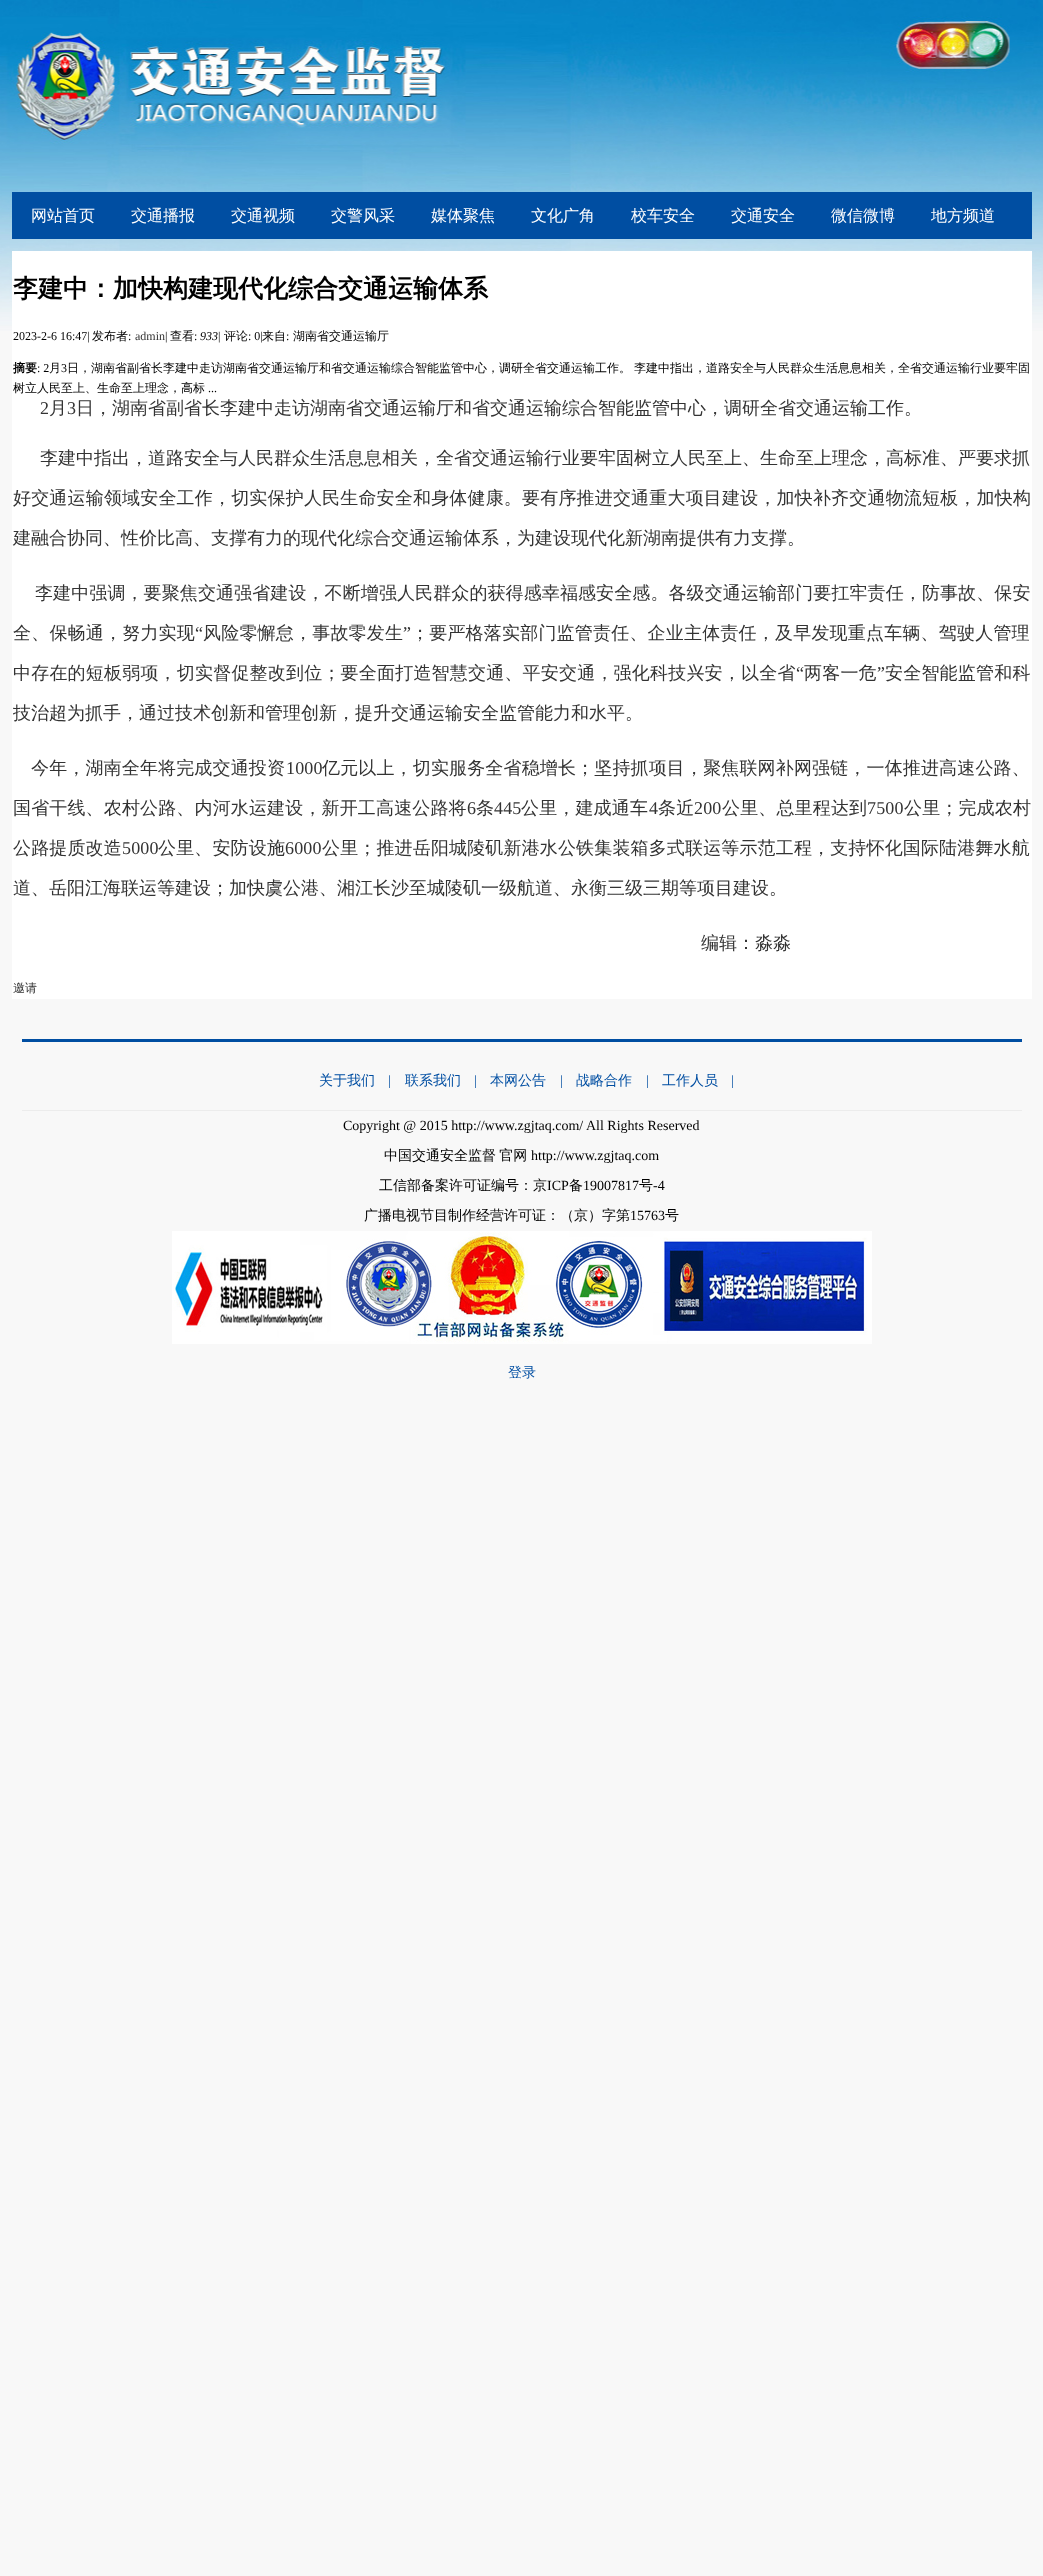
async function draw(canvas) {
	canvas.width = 1043;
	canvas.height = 2576;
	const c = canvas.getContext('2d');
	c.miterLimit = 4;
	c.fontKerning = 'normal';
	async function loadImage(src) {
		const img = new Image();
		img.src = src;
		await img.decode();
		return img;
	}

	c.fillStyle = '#f8f8f8';
	c.fillRect(0, 0, 1043, 2576);
	c.drawImage(await loadImage('img1.png'), 0, 180, 1043, 151);
	c.drawImage(await loadImage('img2.png'), 0, 0, 1043, 180);
	c.fillStyle = '#004ea2';
	c.fillRect(12, 192, 1020, 47);
	c.font = '500 16px WenQuanYi Zen Hei';
	c.fillStyle = '#fff';
	for (const [text, x, y] of [
		['网站首页', 31, 221],
		['交通播报', 131, 221],
		['交通视频', 231, 221],
		['交警风采', 331, 221],
		['媒体聚焦', 431, 221],
		['文化广角', 531, 221],
		['校车安全', 631, 221],
		['交通安全', 731, 221],
		['微信微博', 831, 221],
		['地方频道', 931, 221],
	]) {
		c.fillText(text, x, y);
	}
	c.fillRect(12, 251, 1020, 748);
	c.font = 'bold 25px WenQuanYi Zen Hei';
	c.fillStyle = '#000';
	c.fillText('李建中：加快构建现代化综合交通运输体系', 13, 297);
	c.font = '12px Liberation Serif';
	c.fillText('2023-2-6 16:47|', 13, 340);
	c.font = '500 12px WenQuanYi Zen Hei';
	c.fillText('发布者', 92, 340);
	c.font = '12px Liberation Serif';
	c.fillText(':', 128, 340);
	c.fillStyle = '#333';
	c.fillText('admin', 135, 340);
	c.fillStyle = '#000';
	c.fillText('|', 165, 340);
	c.font = '500 12px WenQuanYi Zen Hei';
	c.fillText('查看', 170, 340);
	c.font = '12px Liberation Serif';
	c.fillText(':', 194, 340);
	c.font = 'italic 12px Liberation Serif';
	c.fillText('933', 200, 340);
	c.font = '12px Liberation Serif';
	c.fillText('|', 218, 340);
	c.font = '500 12px WenQuanYi Zen Hei';
	c.fillText('评论', 224, 340);
	c.font = '12px Liberation Serif';
	c.fillText(': 0|', 248, 340);
	c.font = '500 12px WenQuanYi Zen Hei';
	c.fillText('来自', 262, 340);
	c.font = '12px Liberation Serif';
	c.fillText(':', 286, 340);
	c.font = '500 12px WenQuanYi Zen Hei';
	c.fillText('湖南省交通运输厅', 293, 340);
	c.font = 'bold 12px WenQuanYi Zen Hei';
	c.fillText('摘要', 13, 372);
	c.font = '12px Liberation Serif';
	c.fillText(': 2', 37, 372);
	c.font = '500 12px WenQuanYi Zen Hei';
	c.fillText('月', 49, 372);
	c.font = '12px Liberation Serif';
	c.fillText('3', 61, 372);
	c.font = '500 12px WenQuanYi Zen Hei';
	for (const [text, x, y] of [
		['日，湖南省副省长李建中走访湖南省交通运输厅和省交通运输综合智能监管中心，调研全省交通运输工作。', 67, 372],
		['李建中指出，道路安全与人民群众生活息息相关，全省交通运输行业要牢固', 634, 372],
		['树立人民至上、生命至上理念，高标', 13, 392],
	]) {
		c.fillText(text, x, y);
	}
	c.font = '12px Liberation Serif';
	c.fillText('...', 208, 392);
	c.font = '18px Liberation Serif';
	c.fillStyle = '#333';
	c.fillText('2', 40, 414);
	c.font = '500 18px WenQuanYi Zen Hei';
	c.fillText('月', 49, 414);
	c.font = '18px Liberation Serif';
	c.fillText('3', 67, 414);
	c.font = '500 18px WenQuanYi Zen Hei';
	c.fillText('日，湖南省副省长李建中走访湖南省交通运输厅和省交通运输综合智能监管中心，调研全省交通运输工作。', 76, 414);
	c.fillText('李建中指出，道路安全与人民群众生活息息相关，全省交通运输行业要牢固树立人民至上、生命至上理念，高标准、严要求抓', 40, 464);
	c.letterSpacing = '0.18px';
	c.fillText('好交通运输领域安全工作，切实保护人民生命安全和身体健康。要有序推进交通重大项目建设，加快补齐交通物流短板，加快构', 13, 504);
	c.letterSpacing = '0px';
	c.fillText('建融合协同、性价比高、支撑有力的现代化综合交通运输体系，为建设现代化新湖南提供有力支撑。', 13, 544);
	c.letterSpacing = '0.1px';
	c.fillText('李建中强调，要聚焦交通强省建设，不断增强人民群众的获得感幸福感安全感。各级交通运输部门要扛牢责任，防事故、保安', 35, 599);
	c.letterSpacing = '0.2px';
	c.fillText('全、保畅通，努力实现', 13, 639);
	c.font = '18px Liberation Serif';
	c.fillText('“', 195, 639);
	c.font = '500 18px WenQuanYi Zen Hei';
	c.fillText('风险零懈怠，事故零发生', 203, 639);
	c.font = '18px Liberation Serif';
	c.fillText('”', 403, 639);
	c.font = '500 18px WenQuanYi Zen Hei';
	c.fillText('；要严格落实部门监管责任、企业主体责任，及早发现重点车辆、驾驶人管理', 411, 639);
	c.fillText('中存在的短板弱项，切实督促整改到位；要全面打造智慧交通、平安交通，强化科技兴安，以全省', 13, 679);
	c.font = '18px Liberation Serif';
	c.fillText('“', 796, 679);
	c.font = '500 18px WenQuanYi Zen Hei';
	c.fillText('两客一危', 804, 679);
	c.font = '18px Liberation Serif';
	c.fillText('”', 877, 679);
	c.font = '500 18px WenQuanYi Zen Hei';
	c.fillText('安全智能监管和科', 885, 679);
	c.letterSpacing = '0px';
	c.fillText('技治超为抓手，通过技术创新和管理创新，提升交通运输安全监管能力和水平。', 13, 719);
	c.letterSpacing = '0.15px';
	c.fillText('今年，湖南全年将完成交通投资', 31, 774);
	c.font = '18px Liberation Serif';
	c.fillText('1000', 286, 774);
	c.font = '500 18px WenQuanYi Zen Hei';
	c.fillText('亿元以上，切实服务全省稳增长；坚持抓项目，聚焦联网补网强链，一体推进高速公路、', 322, 774);
	c.fillText('国省干线、农村公路、内河水运建设，新开工高速公路将', 13, 814);
	c.font = '18px Liberation Serif';
	c.fillText('6', 467, 814);
	c.font = '500 18px WenQuanYi Zen Hei';
	c.fillText('条', 476, 814);
	c.font = '18px Liberation Serif';
	c.fillText('445', 494, 814);
	c.font = '500 18px WenQuanYi Zen Hei';
	c.fillText('公里，建成通车', 521, 814);
	c.font = '18px Liberation Serif';
	c.fillText('4', 649, 814);
	c.font = '500 18px WenQuanYi Zen Hei';
	c.fillText('条近', 658, 814);
	c.font = '18px Liberation Serif';
	c.fillText('200', 694, 814);
	c.font = '500 18px WenQuanYi Zen Hei';
	c.fillText('公里、总里程达到', 722, 814);
	c.font = '18px Liberation Serif';
	c.fillText('7500', 867, 814);
	c.font = '500 18px WenQuanYi Zen Hei';
	c.fillText('公里；完成农村', 904, 814);
	c.fillText('公路提质改造', 13, 854);
	c.font = '18px Liberation Serif';
	c.fillText('5000', 122, 854);
	c.font = '500 18px WenQuanYi Zen Hei';
	c.fillText('公里、安防设施', 158, 854);
	c.font = '18px Liberation Serif';
	c.fillText('6000', 285, 854);
	c.font = '500 18px WenQuanYi Zen Hei';
	c.fillText('公里；推进岳阳城陵矶新港水公铁集装箱多式联运等示范工程，支持怀化国际陆港舞水航', 322, 854);
	c.letterSpacing = '0px';
	c.fillText('道、岳阳江海联运等建设；加快虞公港、湘江长沙至城陵矶一级航道、永衡三级三期等项目建设。', 13, 894);
	c.fillText('编辑：淼淼', 701, 949);
	c.font = '500 12px WenQuanYi Zen Hei';
	c.fillText('邀请', 13, 992);
	c.fillStyle = '#004ea2';
	c.fillRect(22, 1039, 1000, 3);
	c.fillStyle = '#ececec';
	c.fillRect(22, 1110, 1000, 1);
	c.font = '500 14px WenQuanYi Zen Hei';
	c.fillStyle = '#004ea2';
	c.fillText('关于我们', 319, 1085);
	c.font = '14px Liberation Serif';
	c.fillText('|', 388, 1085);
	c.font = '500 14px WenQuanYi Zen Hei';
	c.fillText('联系我们', 405, 1085);
	c.font = '14px Liberation Serif';
	c.fillText('|', 474, 1085);
	c.font = '500 14px WenQuanYi Zen Hei';
	c.fillText('本网公告', 490, 1085);
	c.font = '14px Liberation Serif';
	c.fillText('|', 560, 1085);
	c.font = '500 14px WenQuanYi Zen Hei';
	c.fillText('战略合作', 576, 1085);
	c.font = '14px Liberation Serif';
	c.fillText('|', 646, 1085);
	c.font = '500 14px WenQuanYi Zen Hei';
	c.fillText('工作人员', 662, 1085);
	c.font = '14px Liberation Serif';
	c.fillText('|', 731, 1085);
	c.fillStyle = '#000';
	c.fillText('Copyright @ 2015 http://www.zgjtaq.com/ All Rights Reserved', 343, 1130);
	c.wordSpacing = '-1px';
	c.font = '500 14px WenQuanYi Zen Hei';
	c.fillText('中国交通安全监督 官网', 384, 1160);
	c.wordSpacing = '0px';
	c.font = '14px Liberation Serif';
	c.fillText('http://www.zgjtaq.com', 531, 1160);
	c.font = '500 14px WenQuanYi Zen Hei';
	c.fillText('工信部备案许可证编号：京', 379, 1190);
	c.font = '14px Liberation Serif';
	c.fillText('ICP', 547, 1190);
	c.font = '500 14px WenQuanYi Zen Hei';
	c.fillText('备', 569, 1190);
	c.font = '14px Liberation Serif';
	c.fillText('19007817', 583, 1190);
	c.font = '500 14px WenQuanYi Zen Hei';
	c.fillText('号', 639, 1190);
	c.font = '14px Liberation Serif';
	c.fillText('-4', 653, 1190);
	c.font = '500 14px WenQuanYi Zen Hei';
	c.fillText('广播电视节目制作经营许可证：（京）字第', 364, 1220);
	c.font = '14px Liberation Serif';
	c.fillText('15763', 630, 1220);
	c.font = '500 14px WenQuanYi Zen Hei';
	c.fillText('号', 665, 1220);
	c.drawImage(await loadImage('img3.png'), 172, 1231, 700, 113);
	c.fillStyle = '#004ea2';
	c.fillText('登录', 508, 1377);
}

draw(document.querySelector('canvas'));
